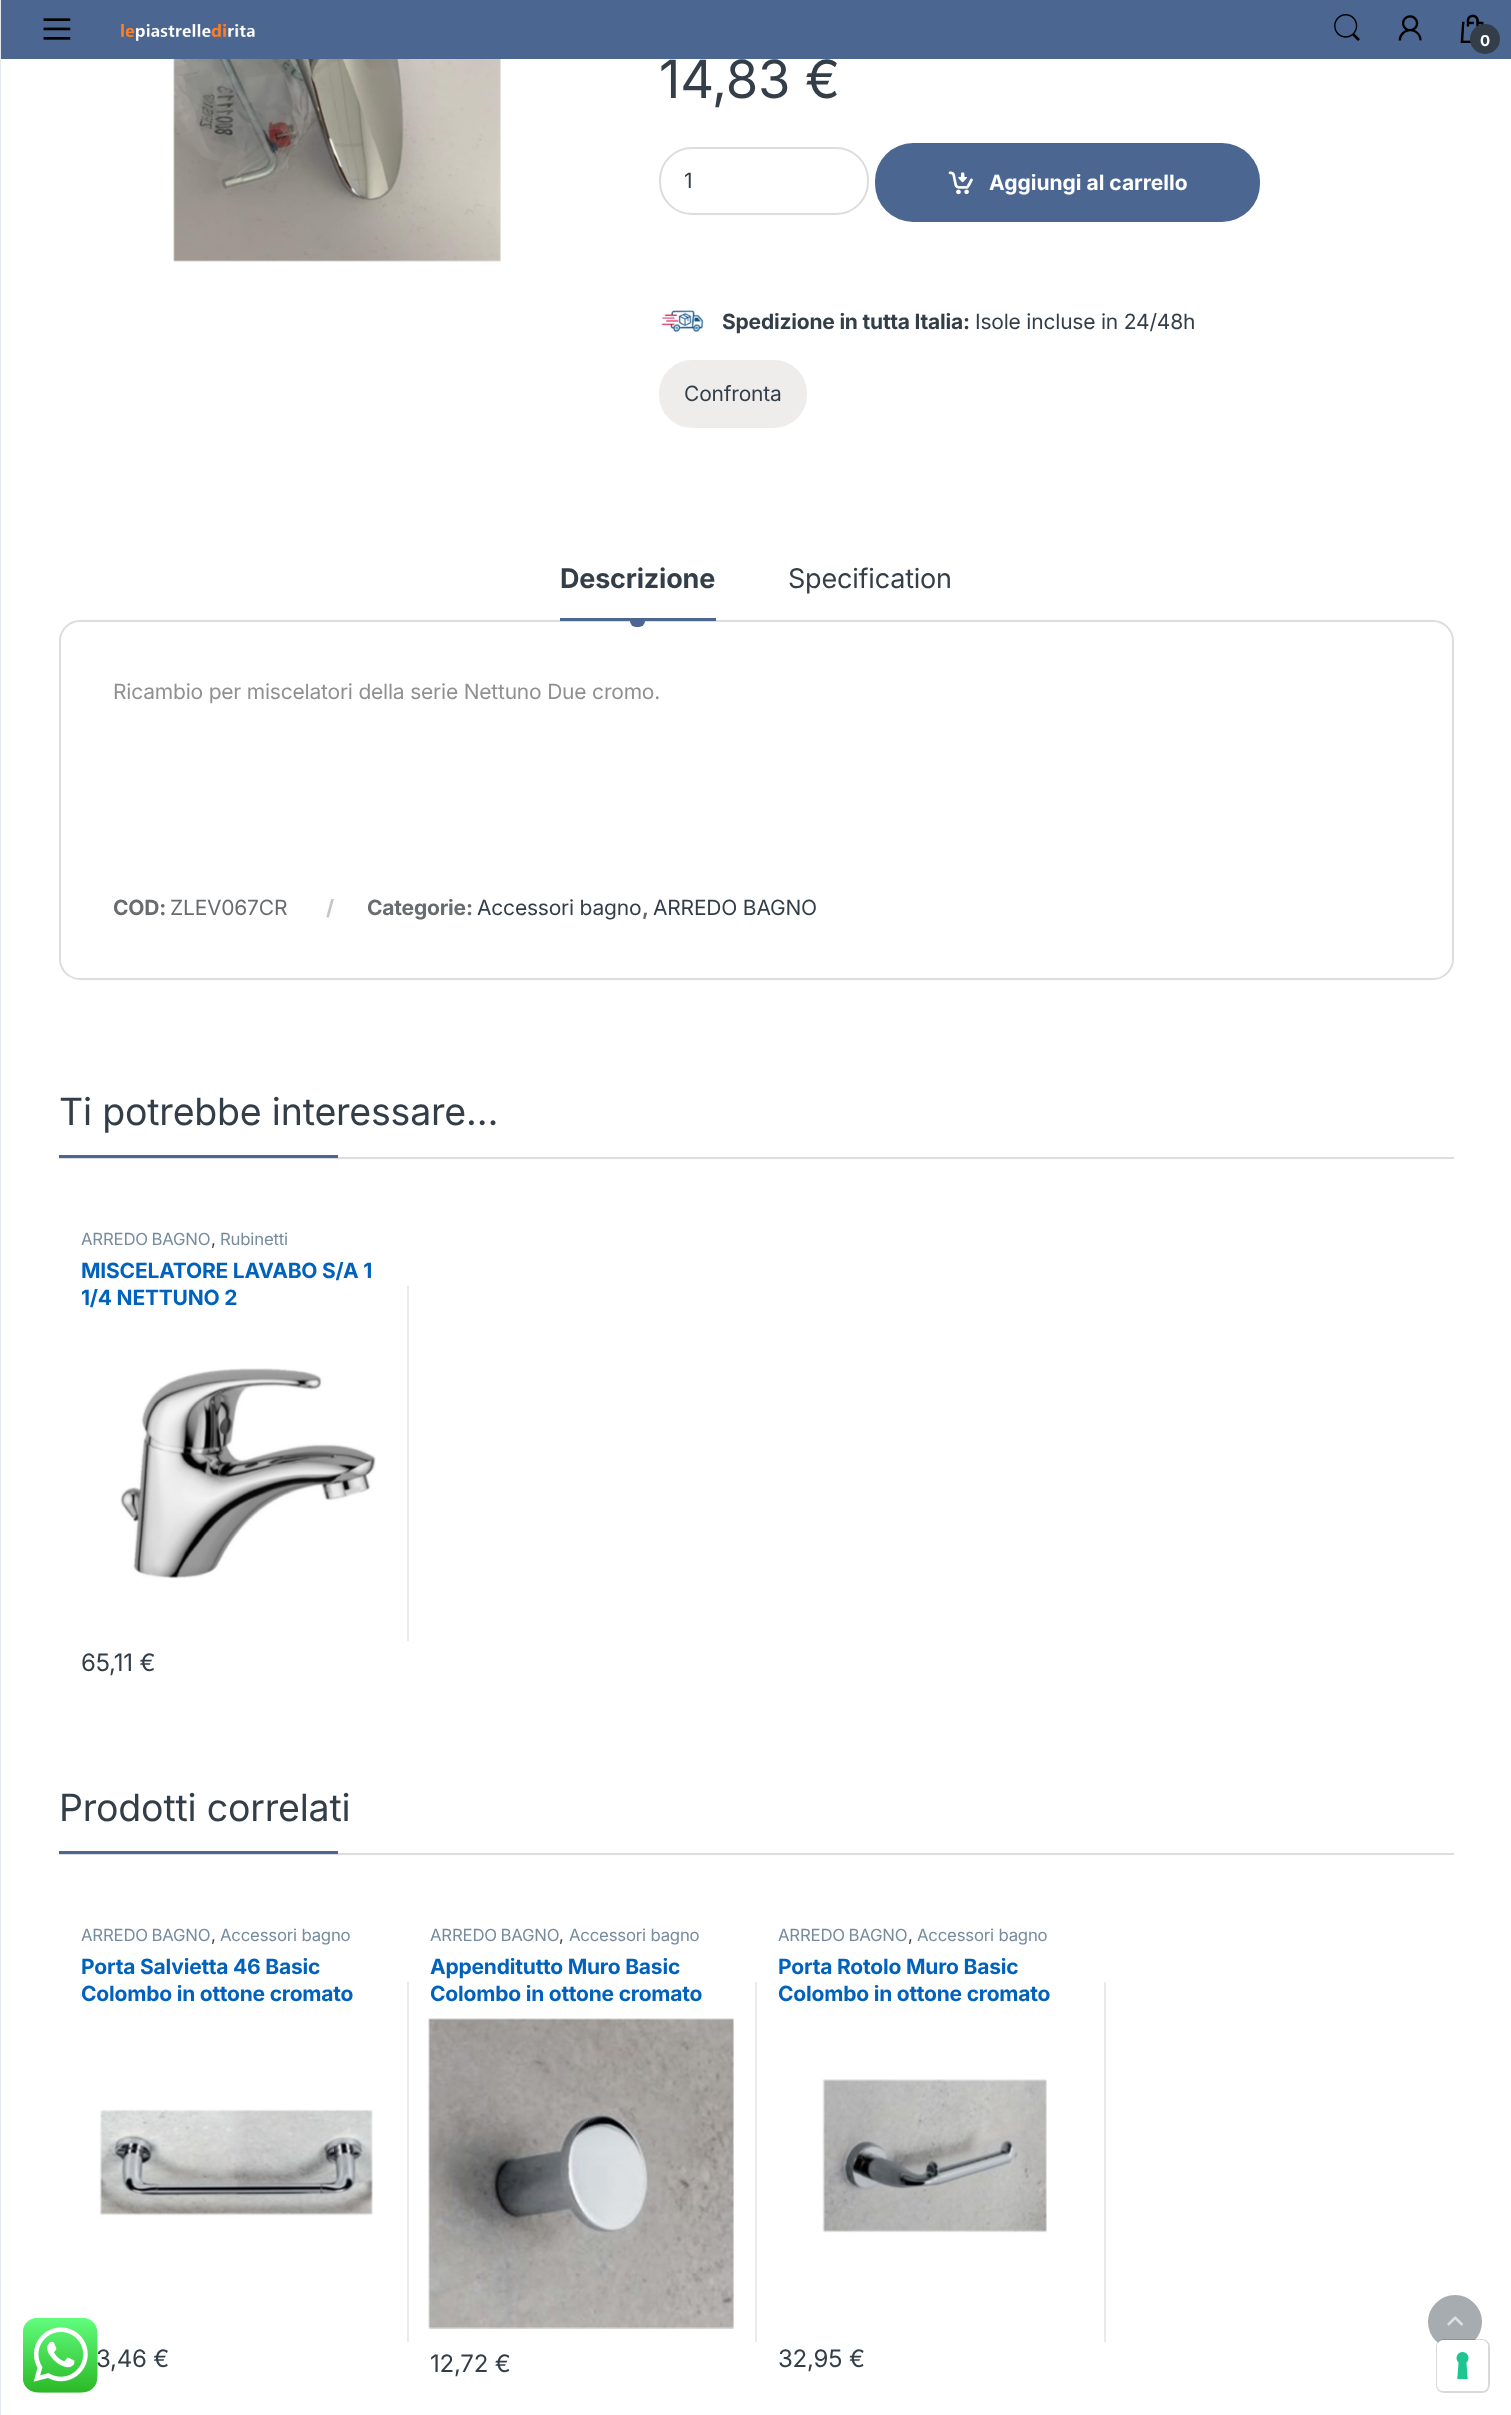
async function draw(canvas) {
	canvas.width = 1511;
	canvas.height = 2415;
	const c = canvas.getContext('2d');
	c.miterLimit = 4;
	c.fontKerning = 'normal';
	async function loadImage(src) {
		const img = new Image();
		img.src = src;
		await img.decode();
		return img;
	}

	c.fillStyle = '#fff';
	c.fillRect(0, 0, 1511, 2415);
	c.fillStyle = '#4b6691';
	c.fillRect(1, 0, 1510, 59);
	c.fillStyle = '#e3e9ef';
	c.fillRect(0, 0, 1, 2415);
	c.drawImage(await loadImage('img1.png'), 43, 18, 28, 22);
	c.drawImage(await loadImage('img2.png'), 121, 24, 134, 17);
	c.drawImage(await loadImage('img3.png'), 1334, 14, 26, 27);
	c.drawImage(await loadImage('img4.png'), 1398, 15, 24, 26);
	c.drawImage(await loadImage('img5.png'), 1460, 14, 24, 29);
	c.fillStyle = '#333e48';
	c.beginPath();
	c.arc(1485, 39, 15, 0, 2 * Math.PI);
	c.fill();
	c.letterSpacing = '-0.2px';
	c.font = 'bold 15px Inter';
	c.fillStyle = '#fff';
	c.fillText('0', 1480, 46);
	c.drawImage(await loadImage('img6.png'), 173, 59, 328, 203);
	c.font = '52.5px Inter';
	c.fillStyle = '#333e48';
	c.fillText('14,83 €', 659, 98);
	c.beginPath();
	c.roundRect(660, 148, 208, 66, 32);
	c.strokeStyle = '#ddd';
	c.lineWidth = 2;
	c.stroke();
	c.letterSpacing = '0px';
	c.font = '21px Inter';
	c.fillText('1', 684, 188);
	c.fillStyle = '#4b6691';
	c.beginPath();
	c.roundRect(875, 143, 385, 79, 38);
	c.fill();
	c.drawImage(await loadImage('img7.png'), 948, 171, 25, 24);
	c.font = 'bold 21px Inter';
	c.fillStyle = '#fff';
	c.fillText('Aggiungi al carrello', 989, 190);
	c.drawImage(await loadImage('img8.png'), 661, 310, 43, 23);
	c.letterSpacing = '-0.2px';
	c.fillStyle = '#333e48';
	c.fillText('Spedizione in tutta Italia:', 722, 329);
	c.font = '21px Inter';
	c.fillText('Isole incluse in 24/48h', 975, 329);
	c.fillStyle = '#efecec';
	c.beginPath();
	c.roundRect(660, 361, 146, 66, 32);
	c.fill();
	c.strokeStyle = '#efecec';
	c.stroke();
	c.fillStyle = '#333e48';
	c.fillText('Confronta', 684, 401);
	c.font = 'bold 27px Inter';
	c.fillText('Descrizione', 560, 588);
	c.beginPath();
	c.roundRect(60, 621, 1393, 358, 20);
	c.strokeStyle = '#ddd';
	c.stroke();
	c.fillStyle = '#4b6691';
	c.fillRect(560, 618, 156, 3);
	c.beginPath();
	c.roundRect(630, 621, 15, 6, [0, 0, 6, 6]);
	c.fill();
	c.font = '27px Inter';
	c.fillStyle = '#333e48';
	c.fillText('Specification', 788, 588);
	c.font = '21px Inter';
	c.fillStyle = '#919090';
	c.fillText('Ricambio per miscelatori della serie Nettuno Due cromo.', 113, 699);
	c.font = 'bold 21px Inter';
	c.fillStyle = '#686c6f';
	c.fillText('COD:', 113, 915);
	c.font = '21px Inter';
	c.fillText('ZLEV067CR', 170, 915);
	c.font = 'bold 21px Inter';
	c.fillStyle = '#c5c5c5';
	c.fillText('/', 326, 915);
	c.fillStyle = '#686c6f';
	c.fillText('Categorie:', 367, 915);
	c.font = '21px Inter';
	c.fillStyle = '#333e48';
	c.fillText('Accessori bagno', 477, 915);
	c.font = 'bold 21px Inter';
	c.fillStyle = '#686c6f';
	c.fillText(',', 642, 915);
	c.font = '21px Inter';
	c.fillStyle = '#333e48';
	c.fillText('ARREDO BAGNO', 653, 915);
	c.fillStyle = '#ddd';
	c.fillRect(59, 1157, 1395, 2);
	c.font = '37.5px Inter';
	c.fillStyle = '#333e48';
	c.fillText('Ti potrebbe interessare…', 59, 1125);
	c.fillStyle = '#4b6691';
	c.fillRect(59, 1155, 279, 3);
	c.wordSpacing = '-1px';
	c.font = '16.75px Inter';
	c.fillStyle = '#768b9e';
	c.fillText('ARREDO BAGNO', 81, 1245);
	c.wordSpacing = '0px';
	c.fillStyle = '#333e48';
	c.fillText(',', 211, 1245);
	c.fillStyle = '#768b9e';
	c.fillText('Rubinetti', 220, 1245);
	c.font = 'bold 21px Inter';
	c.fillStyle = '#0062bd';
	c.fillText('MISCELATORE LAVABO S/A 1', 81, 1278);
	c.fillText('1/4 NETTUNO 2', 81, 1305);
	c.drawImage(await loadImage('img9.png'), 120, 1368, 256, 211);
	c.font = '24px Inter';
	c.fillStyle = '#333e48';
	c.fillText('65,11 €', 81, 1671);
	c.fillStyle = '#eaeaea';
	c.fillRect(407, 1286, 2, 355);
	c.fillStyle = '#ddd';
	c.fillRect(59, 1853, 1395, 2);
	c.font = '37.5px Inter';
	c.fillStyle = '#333e48';
	c.fillText('Prodotti correlati', 59, 1821);
	c.fillStyle = '#4b6691';
	c.fillRect(59, 1851, 279, 3);
	c.wordSpacing = '-1px';
	c.font = '16.75px Inter';
	c.fillStyle = '#768b9e';
	c.fillText('ARREDO BAGNO', 81, 1941);
	c.wordSpacing = '0px';
	c.fillStyle = '#333e48';
	c.fillText(',', 211, 1941);
	c.fillStyle = '#768b9e';
	c.fillText('Accessori bagno', 220, 1941);
	c.font = 'bold 21px Inter';
	c.fillStyle = '#0062bd';
	c.fillText('Porta Salvietta 46 Basic', 81, 1974);
	c.fillText('Colombo in ottone cromato', 81, 2001);
	c.drawImage(await loadImage('img10.png'), 99, 2109, 274, 107);
	c.font = '24px Inter';
	c.fillStyle = '#333e48';
	c.fillText('3,46 €', 96, 2367);
	c.fillStyle = '#eaeaea';
	c.fillRect(407, 1982, 2, 360);
	c.wordSpacing = '-1px';
	c.font = '16.75px Inter';
	c.fillStyle = '#768b9e';
	c.fillText('ARREDO BAGNO', 430, 1941);
	c.wordSpacing = '0px';
	c.fillStyle = '#333e48';
	c.fillText(',', 559, 1941);
	c.fillStyle = '#768b9e';
	c.fillText('Accessori bagno', 569, 1941);
	c.font = 'bold 21px Inter';
	c.fillStyle = '#0062bd';
	c.fillText('Appenditutto Muro Basic', 430, 1974);
	c.fillText('Colombo in ottone cromato', 430, 2001);
	c.drawImage(await loadImage('img11.png'), 428, 2018, 306, 311);
	c.font = '24px Inter';
	c.fillStyle = '#333e48';
	c.fillText('12,72 €', 430, 2372);
	c.fillStyle = '#eaeaea';
	c.fillRect(755, 1982, 2, 360);
	c.wordSpacing = '-1px';
	c.font = '16.75px Inter';
	c.fillStyle = '#768b9e';
	c.fillText('ARREDO BAGNO', 778, 1941);
	c.wordSpacing = '0px';
	c.fillStyle = '#333e48';
	c.fillText(',', 908, 1941);
	c.fillStyle = '#768b9e';
	c.fillText('Accessori bagno', 917, 1941);
	c.font = 'bold 21px Inter';
	c.fillStyle = '#0062bd';
	c.fillText('Porta Rotolo Muro Basic', 778, 1974);
	c.fillText('Colombo in ottone cromato', 778, 2001);
	c.drawImage(await loadImage('img12.png'), 822, 2079, 225, 154);
	c.font = '24px Inter';
	c.fillStyle = '#333e48';
	c.fillText('32,95 €', 778, 2367);
	c.fillStyle = '#eaeaea';
	c.fillRect(1104, 1982, 2, 360);
	c.drawImage(await loadImage('img13.png'), 23, 2318, 75, 75);
	c.fillStyle = '#a7acb1';
	c.beginPath();
	c.arc(1455, 2322, 26, 0, 2 * Math.PI);
	c.fill();
	c.strokeStyle = '#a7acb1';
	c.stroke();
	c.drawImage(await loadImage('img14.png'), 1447, 2316, 16, 10);
	c.beginPath();
	c.roundRect(1437, 2340, 52, 52, 7);
	c.strokeStyle = '#00000026';
	c.stroke();
	c.fillStyle = '#fff';
	c.beginPath();
	c.roundRect(1437, 2340, 51, 51, 6);
	c.fill();
	c.drawImage(await loadImage('img15.png'), 1456, 2352, 13, 27);
}

draw(document.querySelector('canvas'));
